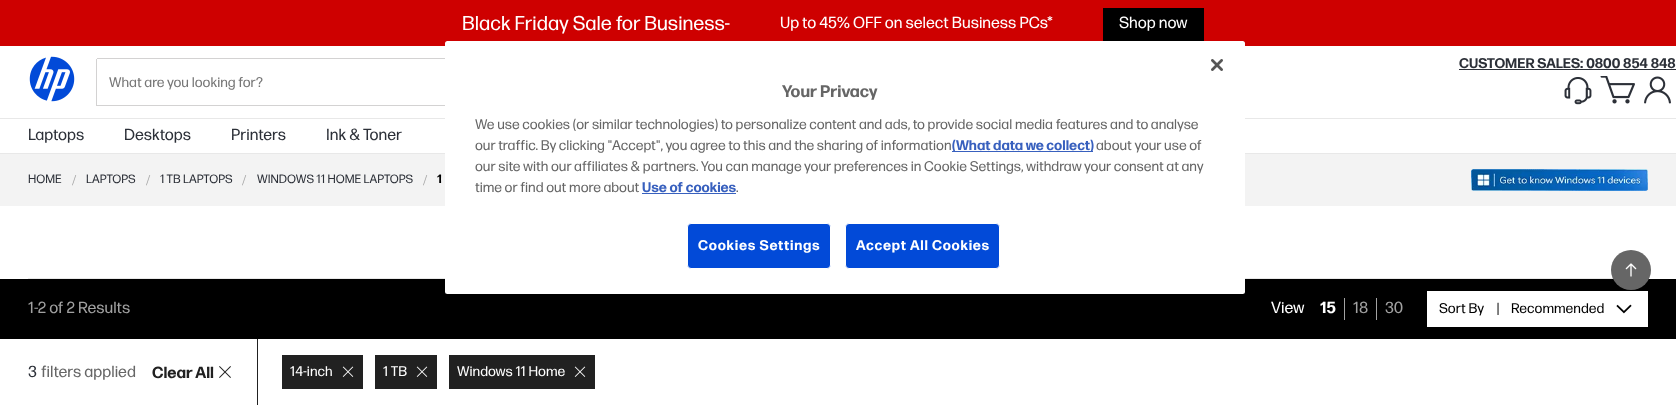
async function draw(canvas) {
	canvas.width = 1676;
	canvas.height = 405;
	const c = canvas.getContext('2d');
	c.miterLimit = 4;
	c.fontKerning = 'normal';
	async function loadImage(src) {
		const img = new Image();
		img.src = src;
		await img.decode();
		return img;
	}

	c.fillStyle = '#fff';
	c.fillRect(0, 0, 1676, 405);
	c.fillStyle = '#ce0000';
	c.fillRect(0, 0, 1676, 46);
	c.font = '20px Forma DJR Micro';
	c.fillStyle = '#fff';
	c.fillText('Black Friday Sale for Business-', 462, 30);
	c.font = '16px Forma DJR Micro';
	c.fillText('Up to 45% OFF on select Business PCs*', 780, 28);
	c.fillStyle = '#000';
	c.fillRect(1103, 8, 101, 33);
	c.font = '16px "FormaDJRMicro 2"';
	c.fillStyle = '#fff';
	c.fillText('Shop now', 1119, 28);
	c.fillStyle = '#e8e8e8';
	c.fillRect(0, 153, 1676, 1);
	c.drawImage(await loadImage('img1.png'), 29, 56, 46, 46);
	c.font = 'bold 14px Forma DJR Micro';
	c.fillStyle = '#2c3038';
	c.fillText('CUSTOMER SALES: 0800 854 848', 1459, 68);
	c.fillRect(1459, 69, 217, 1);
	c.drawImage(await loadImage('img2.png'), 1564, 77, 28, 28);
	c.drawImage(await loadImage('img3.png'), 1600, 76, 35, 28);
	c.drawImage(await loadImage('img4.png'), 1644, 76, 27, 28);
	for (const [x, y, w, h, color] of [
		[97, 58, 348, 1, '#d3d2d2'],
		[97, 105, 348, 1, '#d3d2d2'],
		[96, 59, 1, 47, '#d3d2d2'],
	]) {
		c.fillStyle = color;
		c.fillRect(x, y, w, h);
	}
	c.font = '14px Forma DJR Micro';
	c.fillStyle = '#767676';
	c.fillText('What are you looking for?', 109, 87);
	c.fillStyle = '#e8e8e8';
	c.fillRect(0, 118, 1676, 1);
	c.font = '16px Forma DJR Micro';
	c.fillStyle = '#2c3038';
	for (const [text, x, y] of [
		['Laptops', 28, 140],
		['Desktops', 124, 140],
		['Printers', 231, 140],
		['Ink & Toner', 326, 140],
	]) {
		c.fillText(text, x, y);
	}
	c.fillStyle = '#f3f3f3';
	c.fillRect(0, 154, 1676, 52);
	c.font = '12px Forma DJR Micro';
	c.fillStyle = '#2c3038';
	c.fillText('HOME', 28, 183);
	c.font = '15px Liberation Serif';
	c.fillStyle = '#a1a1a1';
	c.fillText('/', 72, 185);
	c.font = '12px Forma DJR Micro';
	c.fillStyle = '#2c3038';
	c.fillText('LAPTOPS', 86, 183);
	c.font = '15px Liberation Serif';
	c.fillStyle = '#a1a1a1';
	c.fillText('/', 146, 185);
	c.font = '12px Forma DJR Micro';
	c.fillStyle = '#2c3038';
	c.fillText('1 TB LAPTOPS', 160, 183);
	c.font = '15px Liberation Serif';
	c.fillStyle = '#a1a1a1';
	c.fillText('/', 242, 185);
	c.font = '12px Forma DJR Micro';
	c.fillStyle = '#2c3038';
	c.fillText('WINDOWS 11 HOME LAPTOPS', 257, 183);
	c.font = '15px Liberation Serif';
	c.fillStyle = '#a1a1a1';
	c.fillText('/', 423, 185);
	c.font = 'bold 12px Forma DJR Micro';
	c.fillStyle = '#000';
	c.fillText('1', 437, 183);
	c.drawImage(await loadImage('img5.png'), 1471, 169, 177, 22);
	c.fillStyle = '#e8e8e8';
	c.fillRect(28, 278, 1586, 1);
	c.fillStyle = '#000';
	c.fillRect(0, 279, 1676, 60);
	c.fillStyle = '#666';
	c.beginPath();
	c.arc(1631, 270, 20, 0, 2 * Math.PI);
	c.fill();
	c.drawImage(await loadImage('img6.png'), 1625, 263, 12, 14);
	c.font = '16px Forma DJR Micro';
	c.fillStyle = '#a1a1a1';
	c.fillText('1-2 of 2 Results', 28, 313);
	c.fillStyle = '#fff';
	c.fillText('View', 1271, 313);
	c.font = 'bold 16px Forma DJR Micro';
	c.fillText('15', 1320, 313);
	c.fillStyle = '#a3a3a3';
	c.fillRect(1344, 298, 1, 22);
	c.font = '16px Forma DJR Micro';
	c.fillStyle = '#a1a1a1';
	c.fillText('18', 1353, 313);
	c.fillStyle = '#a3a3a3';
	c.fillRect(1376, 298, 1, 22);
	c.fillStyle = '#a1a1a1';
	c.fillText('30', 1385, 313);
	c.fillStyle = '#fff';
	c.fillRect(1427, 291, 221, 36);
	c.font = '14px Forma DJR Micro';
	c.fillStyle = '#000';
	for (const [text, x, y] of [
		['Sort By', 1439, 313],
		['|', 1497, 313],
		['Recommended', 1511, 313],
	]) {
		c.fillText(text, x, y);
	}
	c.drawImage(await loadImage('img7.png'), 1616, 304, 16, 10);
	c.fillStyle = '#212121';
	c.fillRect(257, 339, 1, 66);
	c.font = '16px Forma DJR Micro';
	c.fillStyle = '#2c3038';
	c.fillText('3', 28, 377);
	c.fillStyle = '#666';
	c.fillText('filters applied', 41, 377);
	c.font = 'bold 16px Forma DJR Micro';
	c.fillStyle = '#212121';
	c.fillText('Clear All', 152, 378);
	c.drawImage(await loadImage('img8.png'), 219, 366, 12, 12);
	c.fillRect(282, 355, 81, 34);
	c.font = '14px Forma DJR Micro';
	c.fillStyle = '#fff';
	c.fillText('14-inch', 290, 376);
	c.drawImage(await loadImage('img9.png'), 342, 366, 12, 11);
	c.fillStyle = '#212121';
	c.fillRect(375, 355, 62, 34);
	c.fillStyle = '#fff';
	c.fillText('1 TB', 383, 376);
	c.drawImage(await loadImage('img9.png'), 416, 366, 12, 11);
	c.fillStyle = '#212121';
	c.fillRect(449, 355, 146, 34);
	c.fillStyle = '#fff';
	c.fillText('Windows 11 Home', 457, 376);
	c.drawImage(await loadImage('img9.png'), 574, 366, 12, 11);
	c.beginPath();
	c.roundRect(445, 41, 800, 253, 2.5);
	c.fill();
	c.drawImage(await loadImage('img10.png'), 1211, 59, 12, 12);
	c.font = 'bold 16.75px "FormaDJRMicro 2"';
	c.fillStyle = '#666';
	c.fillText('Your Privacy', 782, 97);
	c.font = '14px "FormaDJRMicro 2"';
	c.fillText('We use cookies (or similar technologies) to personalize content and ads, to provide social media features and to analyse', 475, 129);
	c.fillText('our traffic. By clicking "Accept", you agree to this and the sharing of information', 475, 150);
	c.fillStyle = '#3860be';
	c.fillRect(952, 151, 141, 1);
	c.font = 'bold 14px "FormaDJRMicro 2"';
	c.fillText('(What data we collect)', 952, 150);
	c.font = '14px "FormaDJRMicro 2"';
	c.fillStyle = '#666';
	for (const [text, x, y] of [
		['about your use of', 1096, 150],
		['our site with our affiliates & partners. You can manage your preferences in Cookie Settings, withdraw your consent at any', 475, 171],
		['time or find out more about', 475, 192],
	]) {
		c.fillText(text, x, y);
	}
	c.font = 'bold 14px "FormaDJRMicro 2"';
	c.fillStyle = '#3860be';
	c.fillText('Use of cookies', 642, 192);
	c.fillRect(642, 193, 94, 1);
	c.font = '14px "FormaDJRMicro 2"';
	c.fillStyle = '#666';
	c.fillText('.', 736, 192);
	c.fillStyle = '#024ad8';
	c.beginPath();
	c.roundRect(687.5, 223.5, 143, 45, 3.5);
	c.fill();
	c.strokeStyle = '#fff';
	c.stroke();
	c.letterSpacing = '0.75px';
	c.font = 'bold 14px "FormaDJRMicro 2"';
	c.fillStyle = '#fff';
	c.fillText('Cookies Settings', 698, 250);
	c.fillStyle = '#024ad8';
	c.beginPath();
	c.roundRect(845.5, 223.5, 154, 45, 3.5);
	c.fill();
	c.stroke();
	c.fillStyle = '#fff';
	c.fillText('Accept All Cookies', 856, 250);
}

draw(document.querySelector('canvas'));
